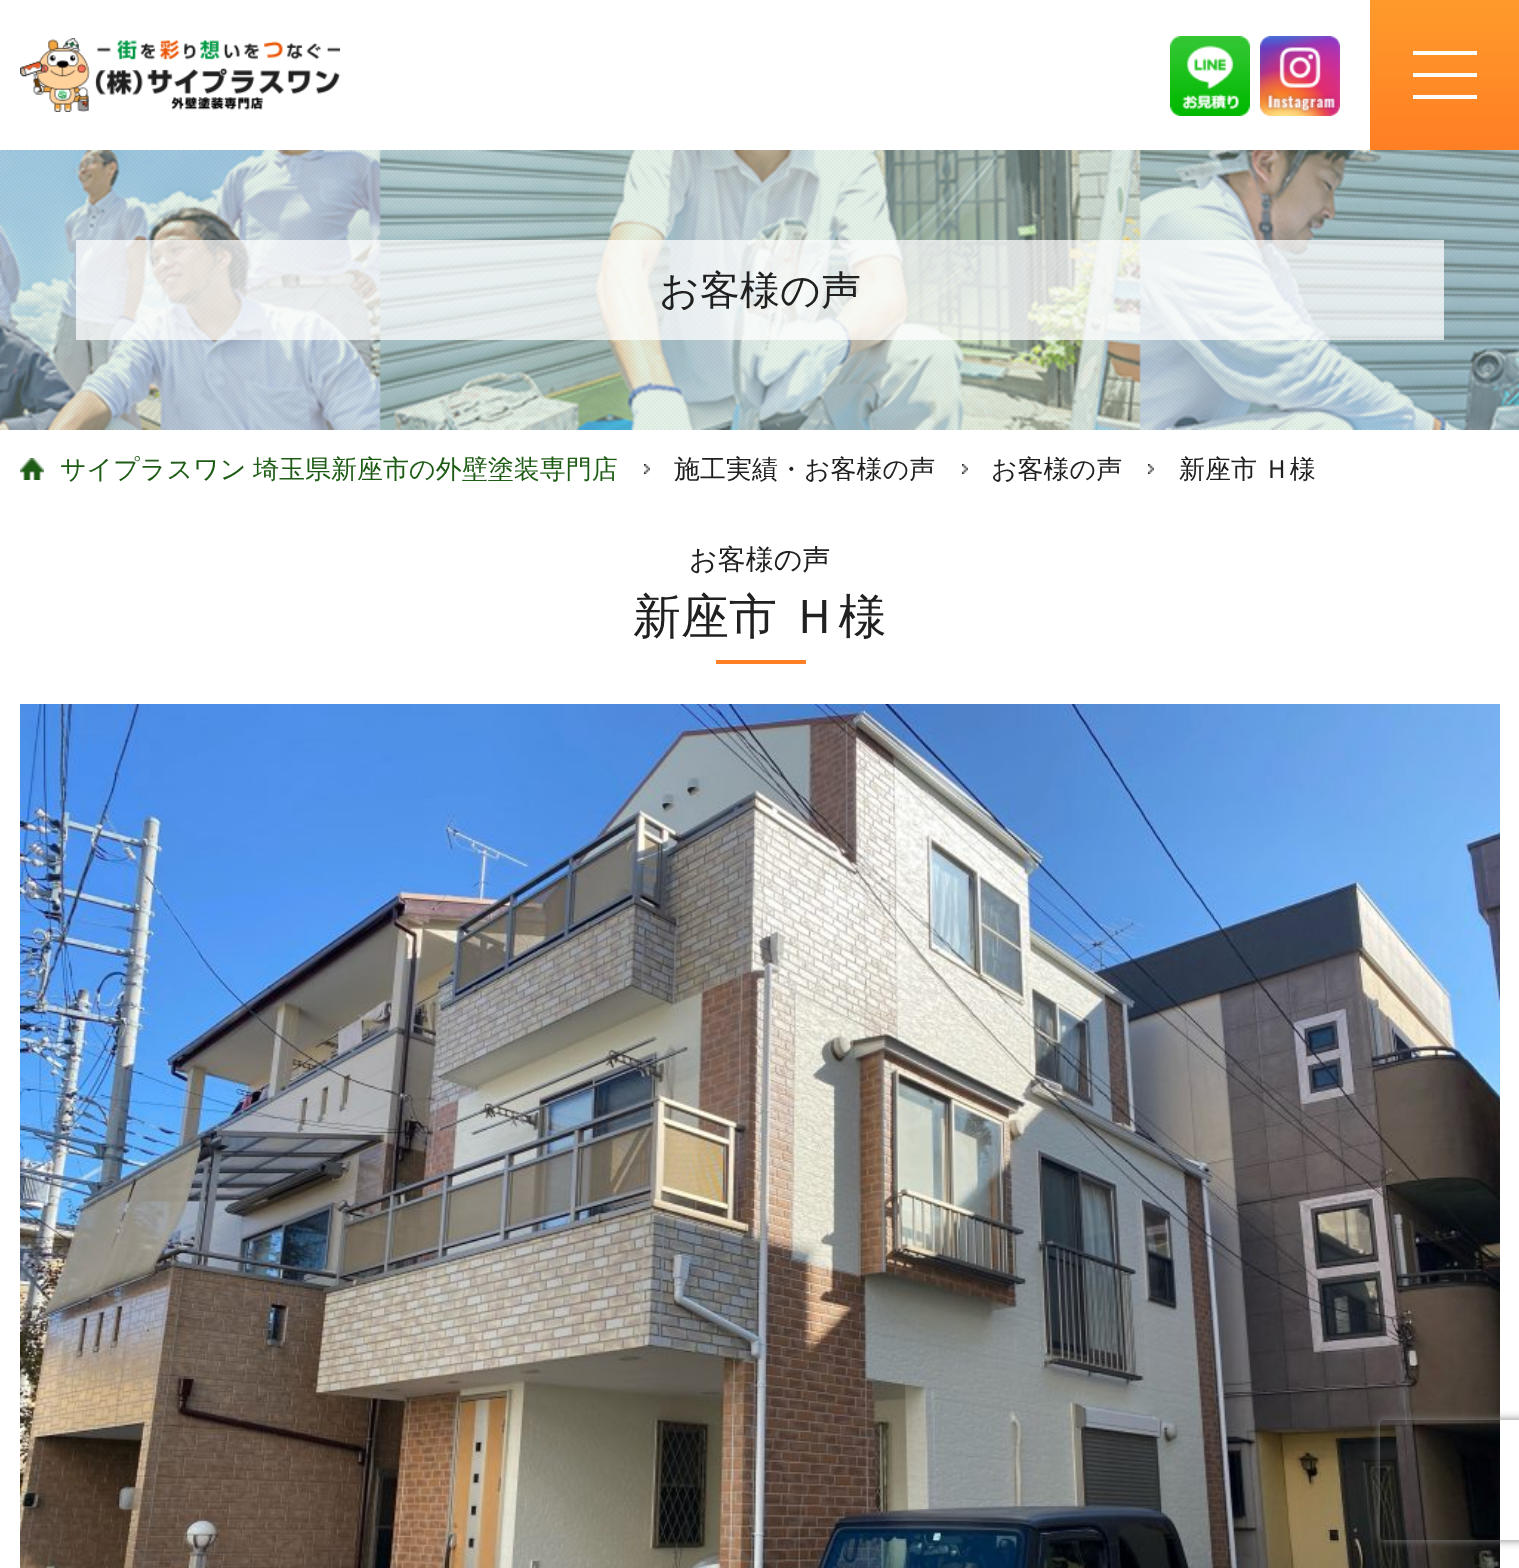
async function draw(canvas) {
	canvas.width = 1519;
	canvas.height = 1568;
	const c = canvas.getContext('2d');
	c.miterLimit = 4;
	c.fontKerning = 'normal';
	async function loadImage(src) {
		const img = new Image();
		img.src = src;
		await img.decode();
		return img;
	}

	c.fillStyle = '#fff';
	c.fillRect(0, 0, 1519, 1568);
	c.drawImage(await loadImage('img1.png'), 20, 38, 320, 74);
	c.drawImage(await loadImage('img2.png'), 1170, 36, 80, 80);
	c.drawImage(await loadImage('img3.png'), 1260, 36, 80, 80);
	c.drawImage(await loadImage('img4.png'), 1370, 0, 149, 150);
	c.drawImage(await loadImage('img5.png'), 0, 150, 1519, 280);
	c.drawImage(await loadImage('img6.png'), 76, 240, 1368, 100);
	c.font = '500 40px WenQuanYi Zen Hei';
	c.fillStyle = '#202020';
	c.fillText('お客様の声', 659, 304);
	c.drawImage(await loadImage('img7.png'), 20, 458, 24, 22);
	c.wordSpacing = '-1px';
	c.font = '500 26px WenQuanYi Zen Hei';
	c.fillStyle = '#1e5c15';
	c.fillText('サイプラスワン 埼玉県新座市の外壁塗装専門店', 60, 478);
	c.drawImage(await loadImage('img8.png'), 644, 464, 6, 10);
	c.wordSpacing = '0px';
	c.fillStyle = '#202020';
	c.fillText('施工実績・お客様の声', 674, 478);
	c.drawImage(await loadImage('img8.png'), 962, 464, 6, 10);
	c.fillText('お客様の声', 991, 478);
	c.drawImage(await loadImage('img8.png'), 1148, 464, 6, 10);
	c.wordSpacing = '-1px';
	c.fillText('新座市 Ｈ様', 1179, 478);
	c.wordSpacing = '0px';
	c.font = '500 28px WenQuanYi Zen Hei';
	c.fillText('お客様の声', 689, 569);
	c.wordSpacing = '-1px';
	c.font = '500 48px WenQuanYi Zen Hei';
	c.fillText('新座市 Ｈ様', 633, 633);
	c.fillStyle = '#ff8024';
	c.fillRect(716, 660, 90, 4);
	c.drawImage(await loadImage('img9.png'), 20, 704, 1480, 864);
	c.save();
	c.beginPath();
	c.moveTo(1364, 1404);
	c.lineTo(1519, 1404);
	c.lineTo(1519, 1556);
	c.lineTo(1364, 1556);
	c.closePath();
	c.moveTo(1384, 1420);
	c.lineTo(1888, 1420);
	c.bezierCurveTo(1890, 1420, 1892, 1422, 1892, 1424);
	c.lineTo(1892, 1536);
	c.bezierCurveTo(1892, 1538, 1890, 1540, 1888, 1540);
	c.lineTo(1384, 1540);
	c.bezierCurveTo(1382, 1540, 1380, 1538, 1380, 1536);
	c.lineTo(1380, 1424);
	c.bezierCurveTo(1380, 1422, 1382, 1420, 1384, 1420);
	c.closePath();
	c.clip('evenodd');
	c.fillStyle = '#808080';
	c.filter = 'blur(5px)';
	c.beginPath();
	c.roundRect(1380, 1420, 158, 120, 4);
	c.fill();
	c.filter = 'none';
	c.restore();
}

draw(document.querySelector('canvas'));
